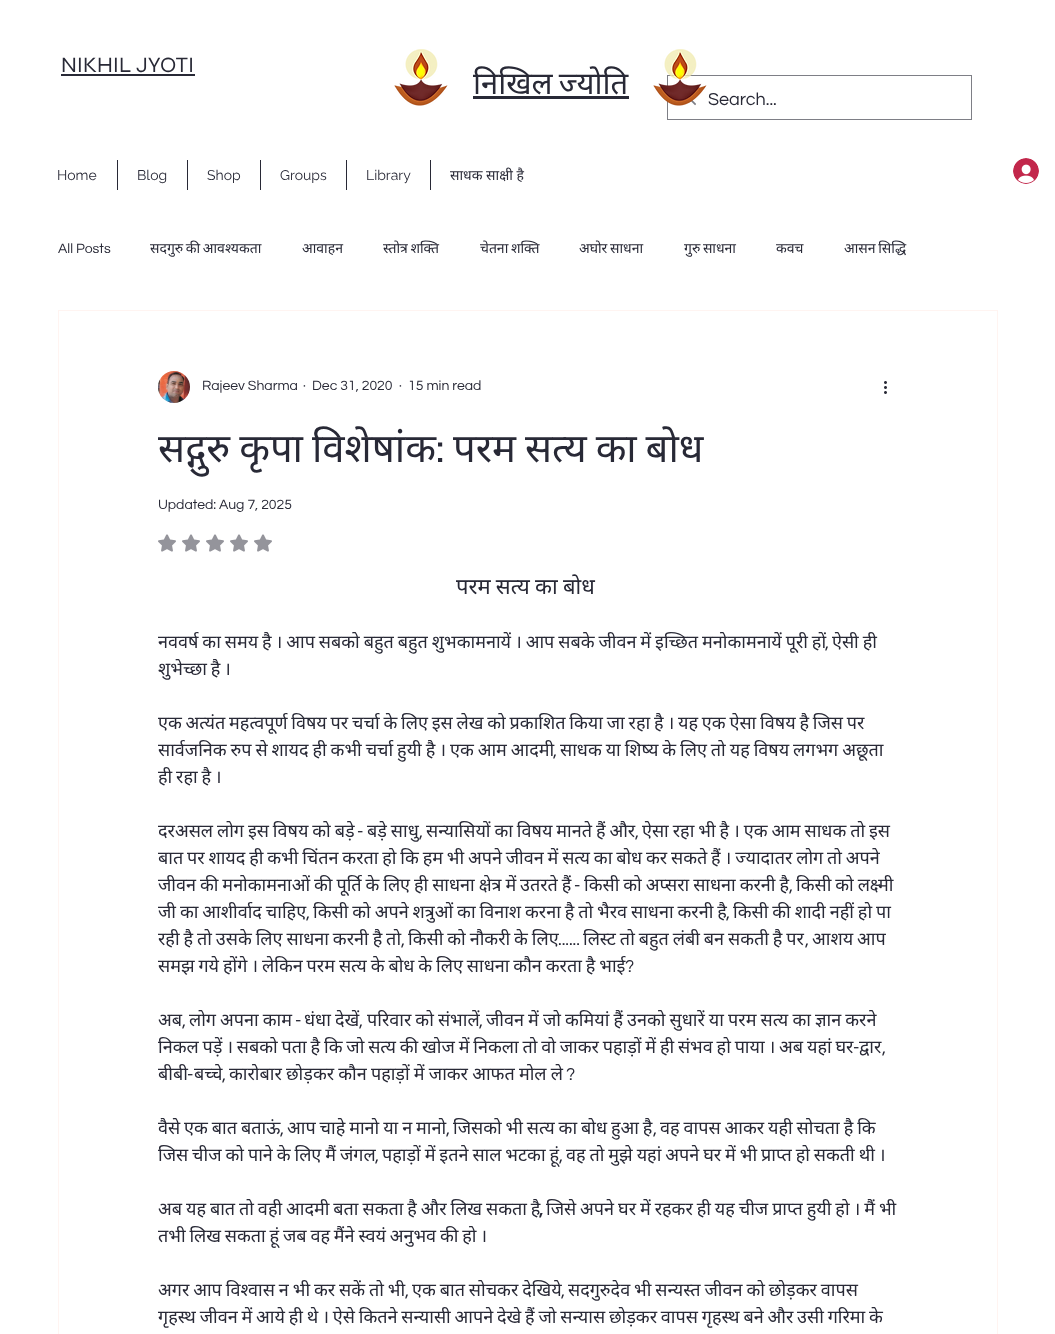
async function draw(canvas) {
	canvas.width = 1055;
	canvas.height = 1334;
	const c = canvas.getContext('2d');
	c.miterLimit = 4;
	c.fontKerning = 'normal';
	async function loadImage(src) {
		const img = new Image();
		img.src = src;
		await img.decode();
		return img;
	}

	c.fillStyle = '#fff';
	c.fillRect(0, 0, 1055, 1334);
	c.drawImage(await loadImage('img1.png'), 394, 49, 54, 57);
	c.strokeStyle = '#7e7f86';
	c.strokeRect(667.5, 75.5, 304, 44);
	c.drawImage(await loadImage('img3.png'), 684, 95, 12, 11);
	c.drawImage(await loadImage('img2.png'), 653, 49, 54, 57);
	c.font = '22px Syne';
	c.fillStyle = '#282936';
	c.fillText('NIKHIL JYOTI', 61, 72);
	c.fillRect(61, 74, 134, 2);
	c.font = '18px Questrial';
	c.fillText('Search...', 708, 105);
	c.wordSpacing = '-2px';
	c.font = '31px Noto Sans';
	c.fillText('निखिल ज्योति', 473, 94);
	c.fillRect(473, 96, 156, 3);
	c.wordSpacing = '0px';
	c.font = '14px Raleway';
	c.fillText('Home', 57, 180);
	c.fillRect(117, 160, 1, 30);
	c.fillText('Blog', 137, 180);
	c.fillRect(187, 160, 1, 30);
	c.fillText('Shop', 207, 180);
	c.fillRect(260, 160, 1, 30);
	c.fillText('Groups', 280, 180);
	c.fillRect(346, 160, 1, 30);
	c.fillText('Library', 366, 180);
	c.fillRect(430, 160, 1, 30);
	c.font = '14px Noto Sans';
	c.fillText('साधक साक्षी है', 450, 180);
	c.drawImage(await loadImage('img4.png'), 1013, 158, 26, 26);
	c.font = '14px Questrial';
	c.fillText('All Posts', 58, 253);
	c.wordSpacing = '-1px';
	c.font = '14px Noto Sans';
	c.fillText('सदगुरु की आवश्यकता', 150, 253);
	c.wordSpacing = '0px';
	c.fillText('आवाहन', 302, 253);
	c.wordSpacing = '-1px';
	for (const [text, x, y] of [
		['स्तोत्र शक्ति', 383, 253],
		['चेतना शक्ति', 480, 253],
		['अघोर साधना', 579, 253],
		['गुरु साधना', 684, 253],
	]) {
		c.fillText(text, x, y);
	}
	c.wordSpacing = '0px';
	c.fillText('कवच', 776, 253);
	c.wordSpacing = '-1px';
	c.fillText('आसन सिद्धि', 844, 253);
	c.strokeStyle = '#fff4f1';
	c.strokeRect(58.5, 310.5, 939, 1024);
	c.drawImage(await loadImage('img5.png'), 158, 371, 32, 32);
	c.wordSpacing = '0px';
	c.font = '14px Questrial';
	for (const [text, x, y] of [
		['Rajeev Sharma', 202, 390],
		['·', 303, 390],
		['Dec 31, 2020', 312, 390],
		['·', 399, 390],
		['15 min read', 408, 390],
	]) {
		c.fillText(text, x, y);
	}
	c.drawImage(await loadImage('img6.png'), 884, 381, 3, 13);
	c.wordSpacing = '-1.5px';
	c.font = '40px Noto Sans';
	c.fillText('सद्गुरु कृपा विशेषांक', 158, 462);
	c.wordSpacing = '0px';
	c.font = '40px Syne';
	c.fillText(':', 435, 462);
	c.wordSpacing = '-1.5px';
	c.font = '40px Noto Sans';
	c.fillText('परम सत्य का बोध', 453, 462);
	c.wordSpacing = '0px';
	c.font = '14px Questrial';
	c.fillText('Updated: Aug 7, 2025', 158, 509);
	c.drawImage(await loadImage('img7.png'), 158, 534, 18, 18);
	c.drawImage(await loadImage('img7.png'), 182, 534, 18, 18);
	c.drawImage(await loadImage('img7.png'), 206, 534, 18, 18);
	c.drawImage(await loadImage('img7.png'), 230, 534, 18, 18);
	c.drawImage(await loadImage('img7.png'), 254, 534, 18, 18);
	c.wordSpacing = '-0.5px';
	c.font = '22px Noto Sans';
	c.fillText('परम सत्य का बोध', 456, 594);
	c.wordSpacing = '-0.75px';
	c.font = '18px Noto Sans';
	c.fillText('नववर्ष का समय है । आप सबको बहुत बहुत शुभकामनायें । आप सबके जीवन में इच्छित मनोकामनायें पूरी हों', 158, 648);
	c.wordSpacing = '0px';
	c.font = '18px Questrial';
	c.fillText(',', 825, 648);
	c.wordSpacing = '-0.75px';
	c.font = '18px Noto Sans';
	c.fillText('ऐसी ही', 832, 648);
	c.wordSpacing = '-0.85px';
	c.fillText('शुभेच्छा है ।', 158, 675);
	c.fillText('एक अत्यंत महत्वपूर्ण विषय पर चर्चा के लिए इस लेख को प्रकाशित किया जा रहा है । यह एक ऐसा विषय है जिस पर', 158, 729);
	c.wordSpacing = '-0.75px';
	c.fillText('सार्वजनिक रुप से शायद ही कभी चर्चा हुयी है । एक आम आदमी', 158, 756);
	c.wordSpacing = '0px';
	c.font = '18px Questrial';
	c.fillText(',', 553, 756);
	c.wordSpacing = '-0.75px';
	c.font = '18px Noto Sans';
	c.fillText('साधक या शिष्य के लिए तो यह विषय लगभग अछूता', 560, 756);
	c.wordSpacing = '-0.85px';
	c.fillText('ही रहा है ।', 158, 783);
	c.wordSpacing = '-0.75px';
	c.fillText('दरअसल लोग इस विषय को बड़े', 158, 837);
	c.wordSpacing = '0px';
	c.font = '18px Questrial';
	c.fillText('-', 357, 837);
	c.wordSpacing = '-0.75px';
	c.font = '18px Noto Sans';
	c.fillText('बड़े साधु', 367, 837);
	c.fillText('सन्यासियों का विषय मानते हैं और', 426, 837);
	c.wordSpacing = '0px';
	c.font = '18px Questrial';
	c.fillText(',', 635, 837);
	c.wordSpacing = '-0.75px';
	c.font = '18px Noto Sans';
	c.fillText('ऐसा रहा भी है । एक आम साधक तो इस', 642, 837);
	c.wordSpacing = '0px';
	c.font = '18px Questrial';
	c.fillText(',', 419, 837);
	c.wordSpacing = '-0.85px';
	c.font = '18px Noto Sans';
	c.fillText('बात पर शायद ही कभी चिंतन करता हो कि हम भी अपने जीवन में सत्य का बोध कर सकते हैं । ज्यादातर लोग तो अपने', 158, 864);
	c.wordSpacing = '-0.75px';
	c.fillText('जीवन की मनोकामनाओं की पूर्ति के लिए ही साधना क्षेत्र में उतरते हैं', 158, 891);
	c.wordSpacing = '0px';
	c.font = '18px Questrial';
	c.fillText('-', 574, 891);
	c.wordSpacing = '-0.75px';
	c.font = '18px Noto Sans';
	c.fillText('किसी को अप्सरा साधना करनी है', 584, 891);
	c.fillText('किसी को लक्ष्मी', 796, 891);
	c.wordSpacing = '0px';
	c.font = '18px Questrial';
	c.fillText(',', 789, 891);
	c.wordSpacing = '-0.75px';
	c.font = '18px Noto Sans';
	c.fillText('जी का आशीर्वाद चाहिए', 158, 918);
	c.wordSpacing = '0px';
	c.font = '18px Questrial';
	c.fillText(',', 306, 918);
	c.wordSpacing = '-0.75px';
	c.font = '18px Noto Sans';
	c.fillText('किसी को अपने शत्रुओं का विनाश करना है तो भैरव साधना करनी है', 313, 918);
	c.wordSpacing = '0px';
	c.font = '18px Questrial';
	c.fillText(',', 726, 918);
	c.wordSpacing = '-0.75px';
	c.font = '18px Noto Sans';
	c.fillText('किसी की शादी नहीं हो पा', 733, 918);
	c.fillText('रही है तो उसके लिए साधना करनी है तो', 158, 945);
	c.wordSpacing = '0px';
	c.font = '18px Questrial';
	c.fillText(',', 401, 945);
	c.wordSpacing = '-0.75px';
	c.font = '18px Noto Sans';
	c.fillText('किसी को नौकरी के लिए', 408, 945);
	c.wordSpacing = '0px';
	c.font = '18px Questrial';
	c.fillText('......', 558, 945);
	c.wordSpacing = '-0.75px';
	c.font = '18px Noto Sans';
	c.fillText('लिस्ट तो बहुत लंबी बन सकती है पर', 583, 945);
	c.wordSpacing = '0px';
	c.font = '18px Questrial';
	c.fillText(',', 805, 945);
	c.wordSpacing = '-0.75px';
	c.font = '18px Noto Sans';
	c.fillText('आशय आप', 812, 945);
	c.fillText('समझ गये होंगे । लेकिन परम सत्य के बोध के लिए साधना कौन करता है भाई', 158, 972);
	c.wordSpacing = '0px';
	c.font = '18px Questrial';
	c.fillText('?', 625, 972);
	c.font = '18px Noto Sans';
	c.fillText('अब', 158, 1026);
	c.wordSpacing = '-0.6px';
	c.fillText('लोग अपना काम', 189, 1026);
	c.wordSpacing = '0px';
	c.font = '18px Questrial';
	c.fillText('-', 295, 1026);
	c.wordSpacing = '-0.6px';
	c.font = '18px Noto Sans';
	c.fillText('धंधा देखें', 304, 1026);
	c.fillText('परिवार को संभालें', 367, 1026);
	c.wordSpacing = '0px';
	c.font = '18px Questrial';
	c.fillText(',', 479, 1026);
	c.wordSpacing = '-0.6px';
	c.font = '18px Noto Sans';
	c.fillText('जीवन में जो कमियां हैं उनको सुधारें या परम सत्य का ज्ञान करने', 486, 1026);
	c.wordSpacing = '0px';
	c.font = '18px Questrial';
	c.fillText(',', 182, 1026);
	c.fillText(',', 359, 1026);
	c.wordSpacing = '-0.85px';
	c.font = '18px Noto Sans';
	c.fillText('निकल पड़ें । सबको पता है कि जो सत्य की खोज में निकला तो वो जाकर पहाड़ों में ही संभव हो पाया । अब यहां घर', 158, 1053);
	c.wordSpacing = '0px';
	c.font = '18px Questrial';
	c.fillText('-', 853, 1053);
	c.font = '18px Noto Sans';
	c.fillText('द्वार', 859, 1053);
	c.font = '18px Questrial';
	c.fillText(',', 882, 1053);
	c.font = '18px Noto Sans';
	c.fillText('बीबी', 158, 1080);
	c.font = '18px Questrial';
	c.fillText('-', 187, 1080);
	c.font = '18px Noto Sans';
	c.fillText('बच्चे', 194, 1080);
	c.wordSpacing = '-0.5px';
	c.fillText('कारोबार छोड़कर कौन पहाड़ों में जाकर आफत मोल ले', 229, 1080);
	c.wordSpacing = '0px';
	c.font = '18px Questrial';
	c.fillText('?', 566, 1080);
	c.fillText(',', 222, 1080);
	c.wordSpacing = '-0.75px';
	c.font = '18px Noto Sans';
	c.fillText('वैसे एक बात बताऊं', 158, 1134);
	c.wordSpacing = '0px';
	c.font = '18px Questrial';
	c.fillText(',', 280, 1134);
	c.wordSpacing = '-0.75px';
	c.font = '18px Noto Sans';
	c.fillText('आप चाहे मानो या न मानो', 287, 1134);
	c.wordSpacing = '0px';
	c.font = '18px Questrial';
	c.fillText(',', 446, 1134);
	c.wordSpacing = '-0.75px';
	c.font = '18px Noto Sans';
	c.fillText('जिसको भी सत्य का बोध हुआ है', 453, 1134);
	c.wordSpacing = '0px';
	c.font = '18px Questrial';
	c.fillText(',', 653, 1134);
	c.wordSpacing = '-0.75px';
	c.font = '18px Noto Sans';
	c.fillText('वह वापस आकर यही सोचता है कि', 660, 1134);
	c.fillText('जिस चीज को पाने के लिए मैं जंगल', 158, 1161);
	c.wordSpacing = '0px';
	c.font = '18px Questrial';
	c.fillText(',', 375, 1161);
	c.wordSpacing = '-0.75px';
	c.font = '18px Noto Sans';
	c.fillText('पहाड़ों में इतने साल भटका हूं', 382, 1161);
	c.fillText('वह तो मुझे यहां अपने घर में भी प्राप्त हो सकती थी ।', 566, 1161);
	c.wordSpacing = '0px';
	c.font = '18px Questrial';
	c.fillText(',', 559, 1161);
	c.wordSpacing = '-0.75px';
	c.font = '18px Noto Sans';
	c.fillText('अब यह बात तो वही आदमी बता सकता है और लिख सकता है', 158, 1215);
	c.wordSpacing = '0px';
	c.font = 'bold 18px Questrial';
	c.fillText(',', 539, 1215);
	c.wordSpacing = '-0.75px';
	c.font = '18px Noto Sans';
	c.fillText('जिसे अपने घर में रहकर ही यह चीज प्राप्त हुयी हो । मैं भी', 546, 1215);
	c.wordSpacing = '-0.85px';
	c.fillText('तभी लिख सकता हूं जब वह मैंने स्वयं अनुभव की हो ।', 158, 1242);
	c.wordSpacing = '-0.75px';
	c.fillText('अगर आप विश्वास न भी कर सकें तो भी', 158, 1296);
	c.wordSpacing = '0px';
	c.font = '18px Questrial';
	c.fillText(',', 405, 1296);
	c.wordSpacing = '-0.75px';
	c.font = '18px Noto Sans';
	c.fillText('एक बात सोचकर देखिये', 412, 1296);
	c.wordSpacing = '0px';
	c.font = '18px Questrial';
	c.fillText(',', 561, 1296);
	c.wordSpacing = '-0.75px';
	c.font = '18px Noto Sans';
	c.fillText('सदगुरुदेव भी सन्यस्त जीवन को छोड़कर वापस', 568, 1296);
	c.wordSpacing = '-0.85px';
	c.fillText('गृहस्थ जीवन में आये ही थे । ऐसे कितने सन्यासी आपने देखे हैं जो सन्यास छोड़कर वापस गृहस्थ बने और उसी गरिमा के', 158, 1323);
}

draw(document.querySelector('canvas'));
